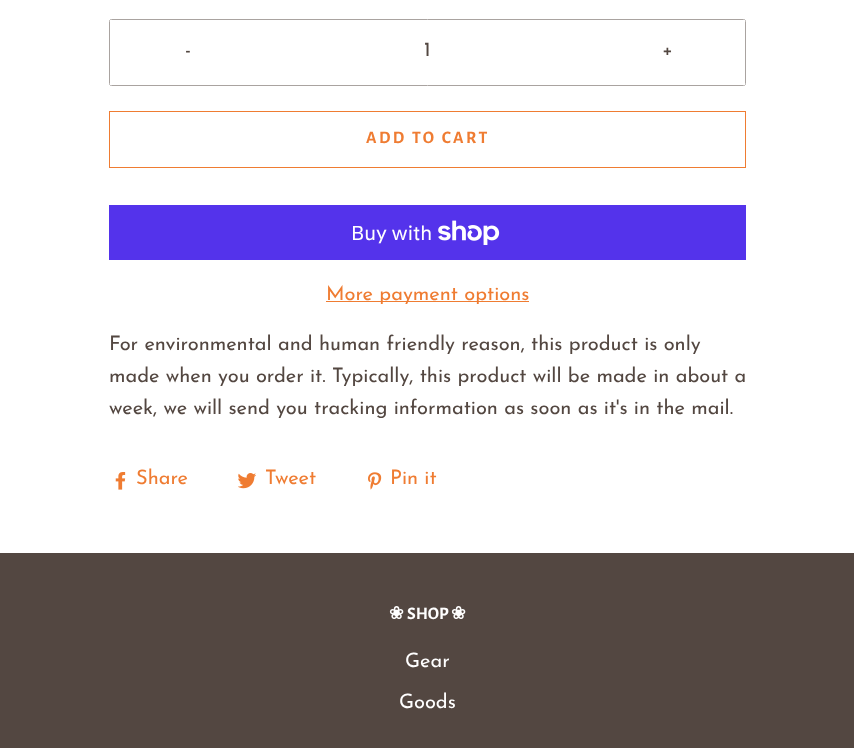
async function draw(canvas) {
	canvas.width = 854;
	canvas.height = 748;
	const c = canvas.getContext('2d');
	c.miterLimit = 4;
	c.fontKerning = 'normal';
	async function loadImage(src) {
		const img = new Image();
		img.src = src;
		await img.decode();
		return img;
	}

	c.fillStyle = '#fff';
	c.fillRect(0, 0, 854, 748);
	c.beginPath();
	c.roundRect(109.5, 19.5, 636, 66, 2);
	c.strokeStyle = '#a9a3a0';
	c.stroke();
	c.fillRect(110, 20, 1, 65);
	c.font = '20px Josefin Sans';
	c.fillStyle = '#534741';
	c.fillText('-', 185, 56);
	c.fillText('1', 424, 56);
	c.fillStyle = '#fff';
	c.fillRect(744, 20, 1, 65);
	c.fillStyle = '#534741';
	c.fillText('+', 662, 56);
	c.strokeStyle = '#ef7c32';
	c.strokeRect(109.5, 111.5, 636, 56);
	c.letterSpacing = '2.5px';
	c.font = 'bold 17.5px Alegreya Sans';
	c.fillStyle = '#ef7c32';
	c.fillText('ADD TO CART', 366, 143);
	c.fillStyle = '#5433eb';
	c.fillRect(109, 205, 637, 55);
	c.letterSpacing = '0px';
	c.font = '20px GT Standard';
	c.fillStyle = '#fff';
	c.fillText('Buy with', 351, 240);
	c.drawImage(await loadImage('img1.png'), 438, 220, 62, 25);
	c.fillStyle = '#ef7c32';
	c.fillRect(326, 301, 203, 1);
	c.font = '20px Josefin Sans';
	c.fillText('More payment options', 326, 300);
	c.fillStyle = '#534741';
	for (const [text, x, y] of [
		['For environmental and human friendly reason, this product is only', 109, 350],
		['made when you order it. Typically, this product will be made in about a', 109, 382],
		['week, we will send you tracking information as soon as it\'s in the mail.', 109, 414],
	]) {
		c.fillText(text, x, y);
	}
	c.drawImage(await loadImage('img2.png'), 115, 472, 11, 18);
	c.fillStyle = '#ef7c32';
	c.fillText('Share', 136, 484);
	c.drawImage(await loadImage('img3.png'), 238, 473, 18, 16);
	c.fillText('Tweet', 265, 484);
	c.drawImage(await loadImage('img4.png'), 368, 472, 14, 18);
	c.fillText('Pin it', 390, 484);
	c.fillStyle = '#534741';
	c.fillRect(0, 553, 854, 195);
	c.font = 'bold 17.5px DejaVu Sans';
	c.fillStyle = '#fff';
	c.fillText('❀', 389, 619);
	c.font = 'bold 17.5px Alegreya Sans';
	c.fillText('SHOP', 407, 619);
	c.font = 'bold 17.5px DejaVu Sans';
	c.fillText('❀', 451, 619);
	c.font = '20px Josefin Sans';
	c.fillText('Gear', 405, 667);
	c.fillText('Goods', 399, 708);
}

draw(document.querySelector('canvas'));
